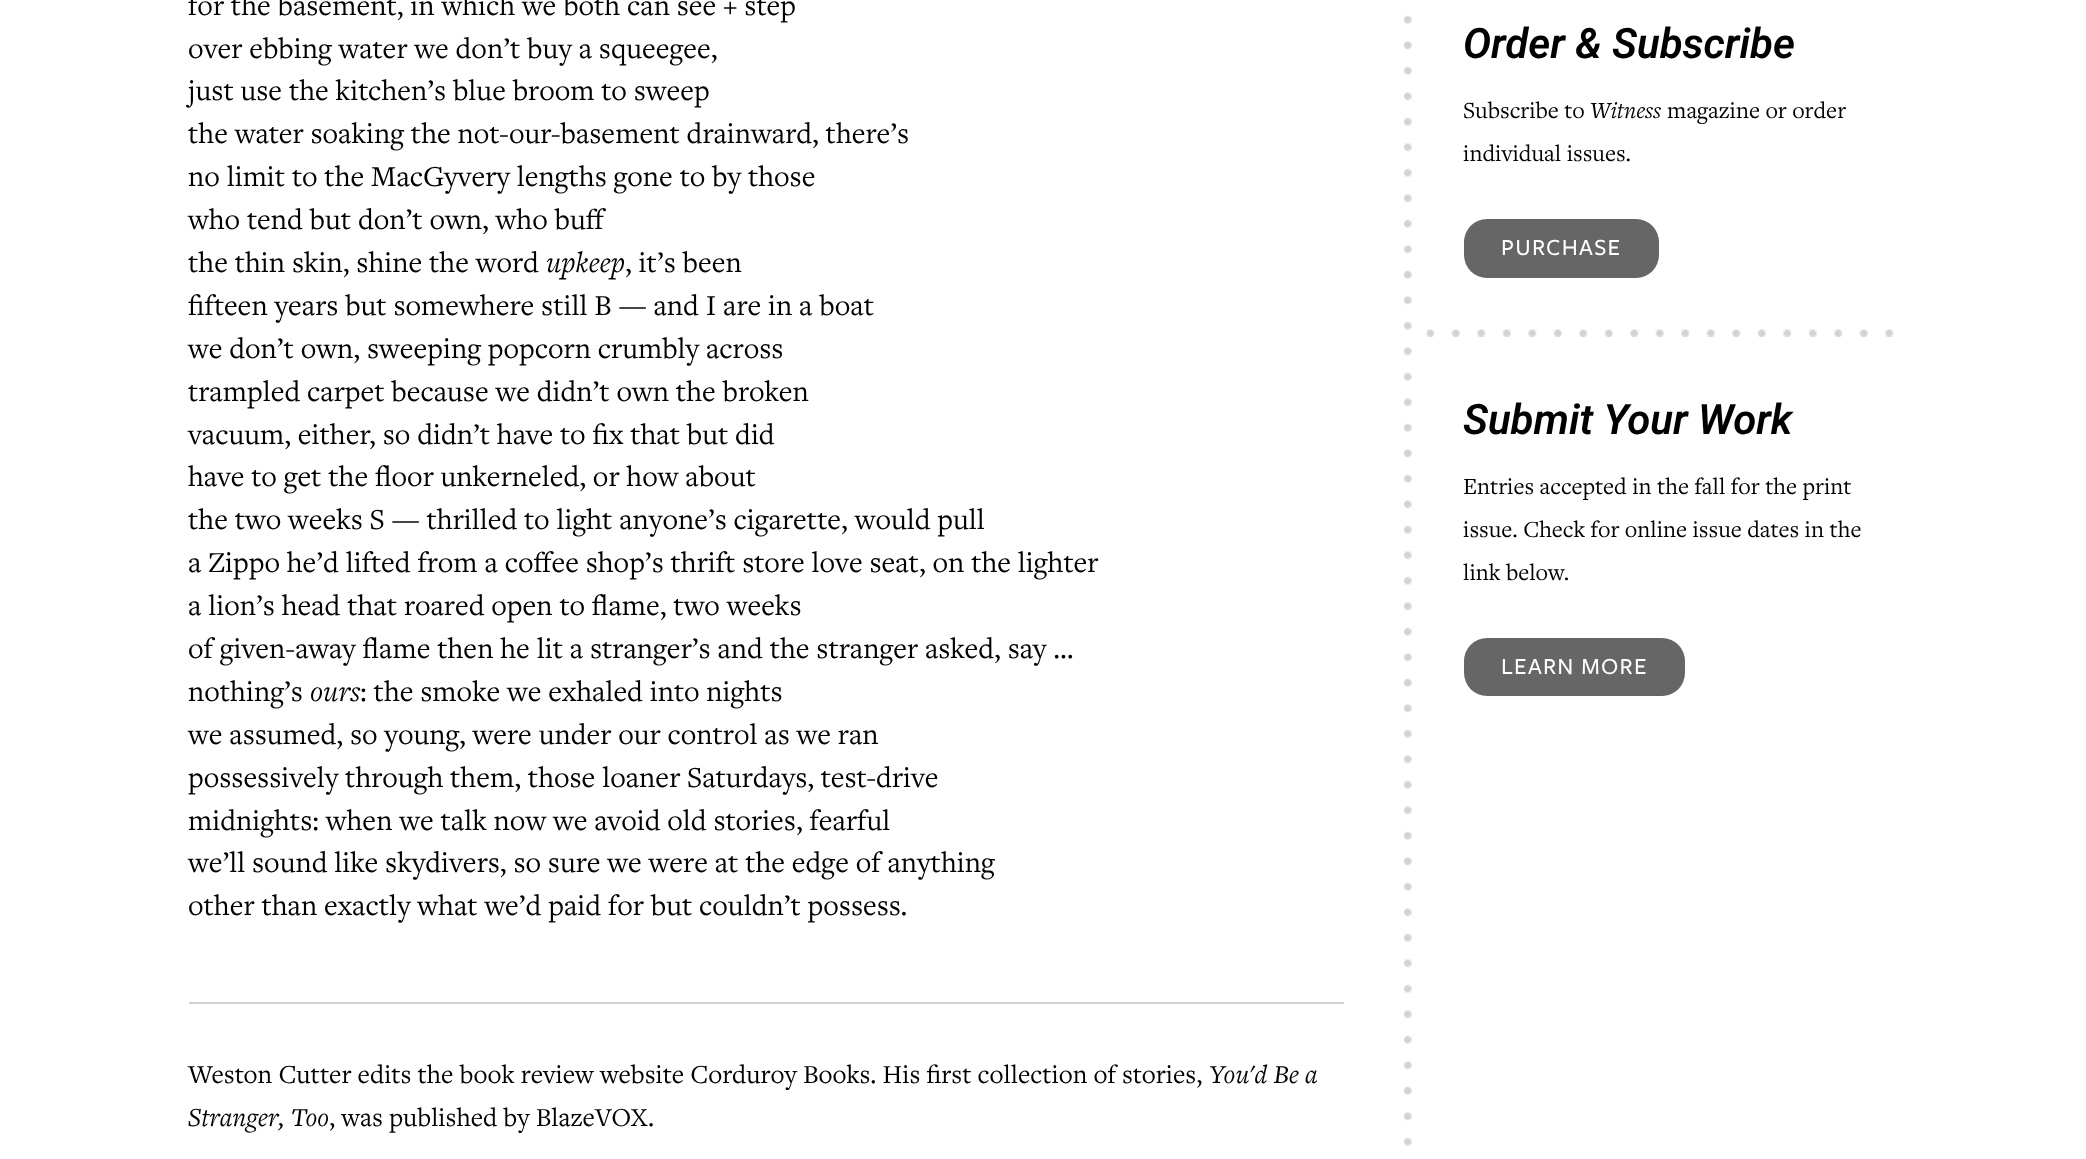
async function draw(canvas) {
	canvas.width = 2086;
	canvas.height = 1159;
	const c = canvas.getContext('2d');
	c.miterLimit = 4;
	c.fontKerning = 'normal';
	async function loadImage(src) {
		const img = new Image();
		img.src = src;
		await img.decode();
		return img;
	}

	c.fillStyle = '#fff';
	c.fillRect(0, 0, 2086, 1159);
	c.drawImage(await loadImage('img1.png'), 1404, 15, 8, 1131);
	c.font = '30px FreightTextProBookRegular';
	c.fillStyle = '#000';
	for (const [text, x, y] of [
		['for the basement, in which we both can see + step', 188, 15],
		['over ebbing water we don’t buy a squeegee,', 188, 58],
		['just use the kitchen’s blue broom to sweep', 188, 100],
		['the water soaking the not-our-basement drainward, there’s', 188, 143],
		['no limit to the MacGyvery lengths gone to by those', 188, 186],
		['who tend but don’t own, who buff', 188, 229],
		['the thin skin, shine the word', 188, 272],
	]) {
		c.fillText(text, x, y);
	}
	c.font = 'italic 30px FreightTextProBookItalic';
	c.fillText('upkeep', 546, 272);
	c.font = '30px FreightTextProBookRegular';
	for (const [text, x, y] of [
		[', it’s been', 625, 272],
		['fifteen years but somewhere still B — and I are in a boat', 188, 315],
		['we don’t own, sweeping popcorn crumbly across', 188, 358],
		['trampled carpet because we didn’t own the broken', 188, 401],
		['vacuum, either, so didn’t have to fix that but did', 188, 444],
		['have to get the floor unkerneled, or how about', 188, 486],
		['the two weeks S — thrilled to light anyone’s cigarette, would pull', 188, 529],
		['a Zippo he’d lifted from a coffee shop’s thrift store love seat, on the lighter', 188, 572],
		['a lion’s head that roared open to flame, two weeks', 188, 615],
		['of given-away flame then he lit a stranger’s and the stranger asked, say …', 188, 658],
		['nothing’s', 188, 701],
	]) {
		c.fillText(text, x, y);
	}
	c.font = 'italic 30px FreightTextProBookItalic';
	c.fillText('ours', 310, 701);
	c.font = '30px FreightTextProBookRegular';
	for (const [text, x, y] of [
		[': the smoke we exhaled into nights', 360, 701],
		['we assumed, so young, were under our control as we ran', 188, 744],
		['possessively through them, those loaner Saturdays, test-drive', 188, 787],
		['midnights: when we talk now we avoid old stories, fearful', 188, 830],
		['we’ll sound like skydivers, so sure we were at the edge of anything', 188, 872],
		['other than exactly what we’d paid for but couldn’t possess.', 188, 915],
	]) {
		c.fillText(text, x, y);
	}
	c.fillStyle = '#d2d2d2';
	c.fillRect(189, 1002, 1155, 2);
	c.font = '27px FreightTextProBookRegular';
	c.fillStyle = '#000';
	c.fillText('Weston Cutter edits the book review website Corduroy Books. His first collection of stories,', 188, 1083);
	c.font = 'italic 27px FreightTextProBookItalic';
	c.fillText('You\'d Be a', 1209, 1083);
	c.fillText('Stranger, Too', 188, 1126);
	c.font = '27px FreightTextProBookRegular';
	c.fillText(', was published by BlazeVOX.', 329, 1126);
	c.drawImage(await loadImage('img2.png'), 1426, 329, 468, 8);
	c.font = 'italic 600 42px Roboto';
	c.fillText('Order & Subscribe', 1463, 58);
	c.font = '24px FreightTextProBookRegular';
	c.fillText('Subscribe to', 1463, 118);
	c.font = 'italic 24px FreightTextProBookItalic';
	c.fillText('Witness', 1590, 118);
	c.font = '24px FreightTextProBookRegular';
	c.fillText('magazine or order', 1667, 118);
	c.fillText('individual issues.', 1463, 161);
	c.fillStyle = '#666';
	c.beginPath();
	c.roundRect(1464, 219, 195, 59, 23);
	c.fill();
	c.letterSpacing = '1.25px';
	c.font = '500 24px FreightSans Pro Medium';
	c.fillStyle = '#fff';
	c.fillText('PURCHASE', 1501, 255);
	c.letterSpacing = '0px';
	c.font = 'italic 600 42px Roboto';
	c.fillStyle = '#000';
	c.fillText('Submit Your Work', 1463, 434);
	c.font = '24px FreightTextProBookRegular';
	for (const [text, x, y] of [
		['Entries accepted in the fall for the print', 1463, 494],
		['issue. Check for online issue dates in the', 1463, 537],
		['link below.', 1463, 580],
	]) {
		c.fillText(text, x, y);
	}
	c.fillStyle = '#666';
	c.beginPath();
	c.roundRect(1464, 638, 221, 58, 23);
	c.fill();
	c.letterSpacing = '1.25px';
	c.font = '500 24px FreightSans Pro Medium';
	c.fillStyle = '#fff';
	c.fillText('LEARN MORE', 1501, 674);
}

draw(document.querySelector('canvas'));
